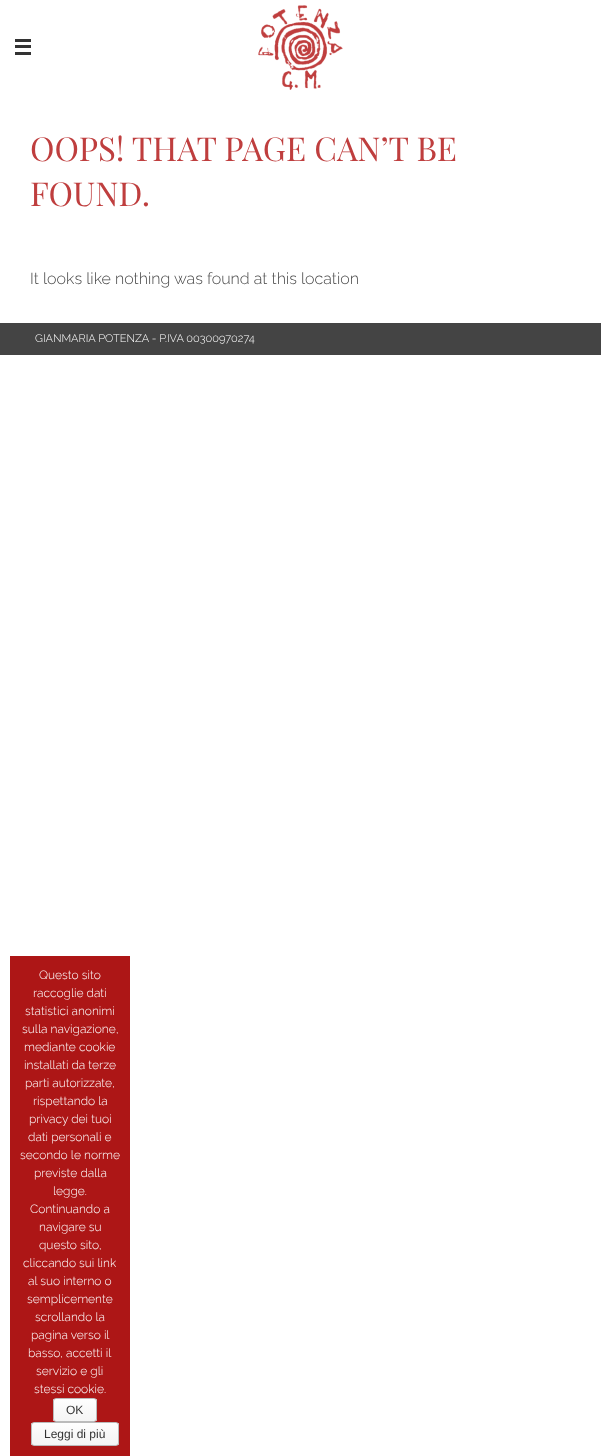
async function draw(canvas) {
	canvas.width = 601;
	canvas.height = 1456;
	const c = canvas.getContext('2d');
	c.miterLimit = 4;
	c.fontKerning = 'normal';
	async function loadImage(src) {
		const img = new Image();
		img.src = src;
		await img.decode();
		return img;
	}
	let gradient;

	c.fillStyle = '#fff';
	c.fillRect(0, 0, 601, 1456);
	for (const [x, y, w, h, color] of [
		[15, 52, 16, 3, '#333'],
		[15, 45, 16, 3, '#333'],
		[15, 39, 16, 3, '#333'],
	]) {
		c.fillStyle = color;
		c.fillRect(x, y, w, h);
	}
	c.drawImage(await loadImage('img1.png'), 258, 5, 85, 85);
	c.font = '33px Playfair Display';
	c.fillStyle = '#bf3e3e';
	c.fillText('OOPS! THAT PAGE CAN’T BE', 30, 161);
	c.fillText('FOUND.', 30, 206);
	c.font = '300 16px Raleway';
	c.fillStyle = '#484848';
	c.fillText('It looks like nothing was found at this location', 30, 284);
	c.fillStyle = '#444';
	c.fillRect(0, 323, 601, 32);
	c.font = '300 11px Raleway';
	c.fillStyle = '#fff';
	c.fillText('GIANMARIA POTENZA - P.IVA 00300970274', 35, 342);
	c.fillStyle = '#ad1616';
	c.fillRect(10, 956, 120, 500);
	c.font = '300 12px Raleway';
	c.fillStyle = '#fff';
	for (const [text, x, y] of [
		['Questo sito', 39, 979],
		['raccoglie dati', 33, 997],
		['statistici anonimi', 25, 1015],
		['sulla navigazione,', 22, 1033],
		['mediante cookie', 24, 1051],
		['installati da terze', 24, 1069],
		['parti autorizzate,', 25, 1087],
		['rispettando la', 33, 1105],
		['privacy dei tuoi', 29, 1123],
		['dati personali e', 28, 1141],
		['secondo le norme', 20, 1159],
		['previste dalla', 34, 1177],
		['legge.', 53, 1195],
		['Continuando a', 30, 1213],
		['navigare su', 39, 1231],
		['questo sito,', 39, 1249],
		['cliccando sui link', 23, 1267],
		['al suo interno o', 28, 1285],
		['semplicemente', 27, 1303],
		['scrollando la', 35, 1321],
		['pagina verso il', 31, 1339],
		['basso, accetti il', 28, 1357],
		['servizio e gli', 36, 1375],
		['stessi cookie.', 34, 1393],
	]) {
		c.fillText(text, x, y);
	}
	c.save();
	c.beginPath();
	c.roundRect(53, 1398, 44, 24, 3);
	c.clip();
	gradient = c.createLinearGradient(75, 1399, 75, 1421);
	gradient.addColorStop(0, '#fefefe');
	gradient.addColorStop(1, '#f4f4f4');
	c.fillStyle = gradient;
	c.fillRect(53, 1399, 44, 22);
	c.restore();
	c.beginPath();
	c.roundRect(53.5, 1398.5, 43, 23, 2.5);
	c.strokeStyle = '#bbb';
	c.stroke();
	c.font = '12px Liberation Sans';
	c.fillStyle = '#333';
	c.fillText('OK', 66, 1414);
	c.save();
	c.beginPath();
	c.roundRect(31, 1422, 88, 24, 3);
	c.clip();
	gradient = c.createLinearGradient(75, 1423, 75, 1445);
	gradient.addColorStop(0, '#fefefe');
	gradient.addColorStop(1, '#f4f4f4');
	c.fillStyle = gradient;
	c.fillRect(31, 1423, 88, 22);
	c.restore();
	c.beginPath();
	c.roundRect(31.5, 1422.5, 87, 23, 2.5);
	c.stroke();
	c.fillText('Leggi di più', 44, 1438);
}

draw(document.querySelector('canvas'));
